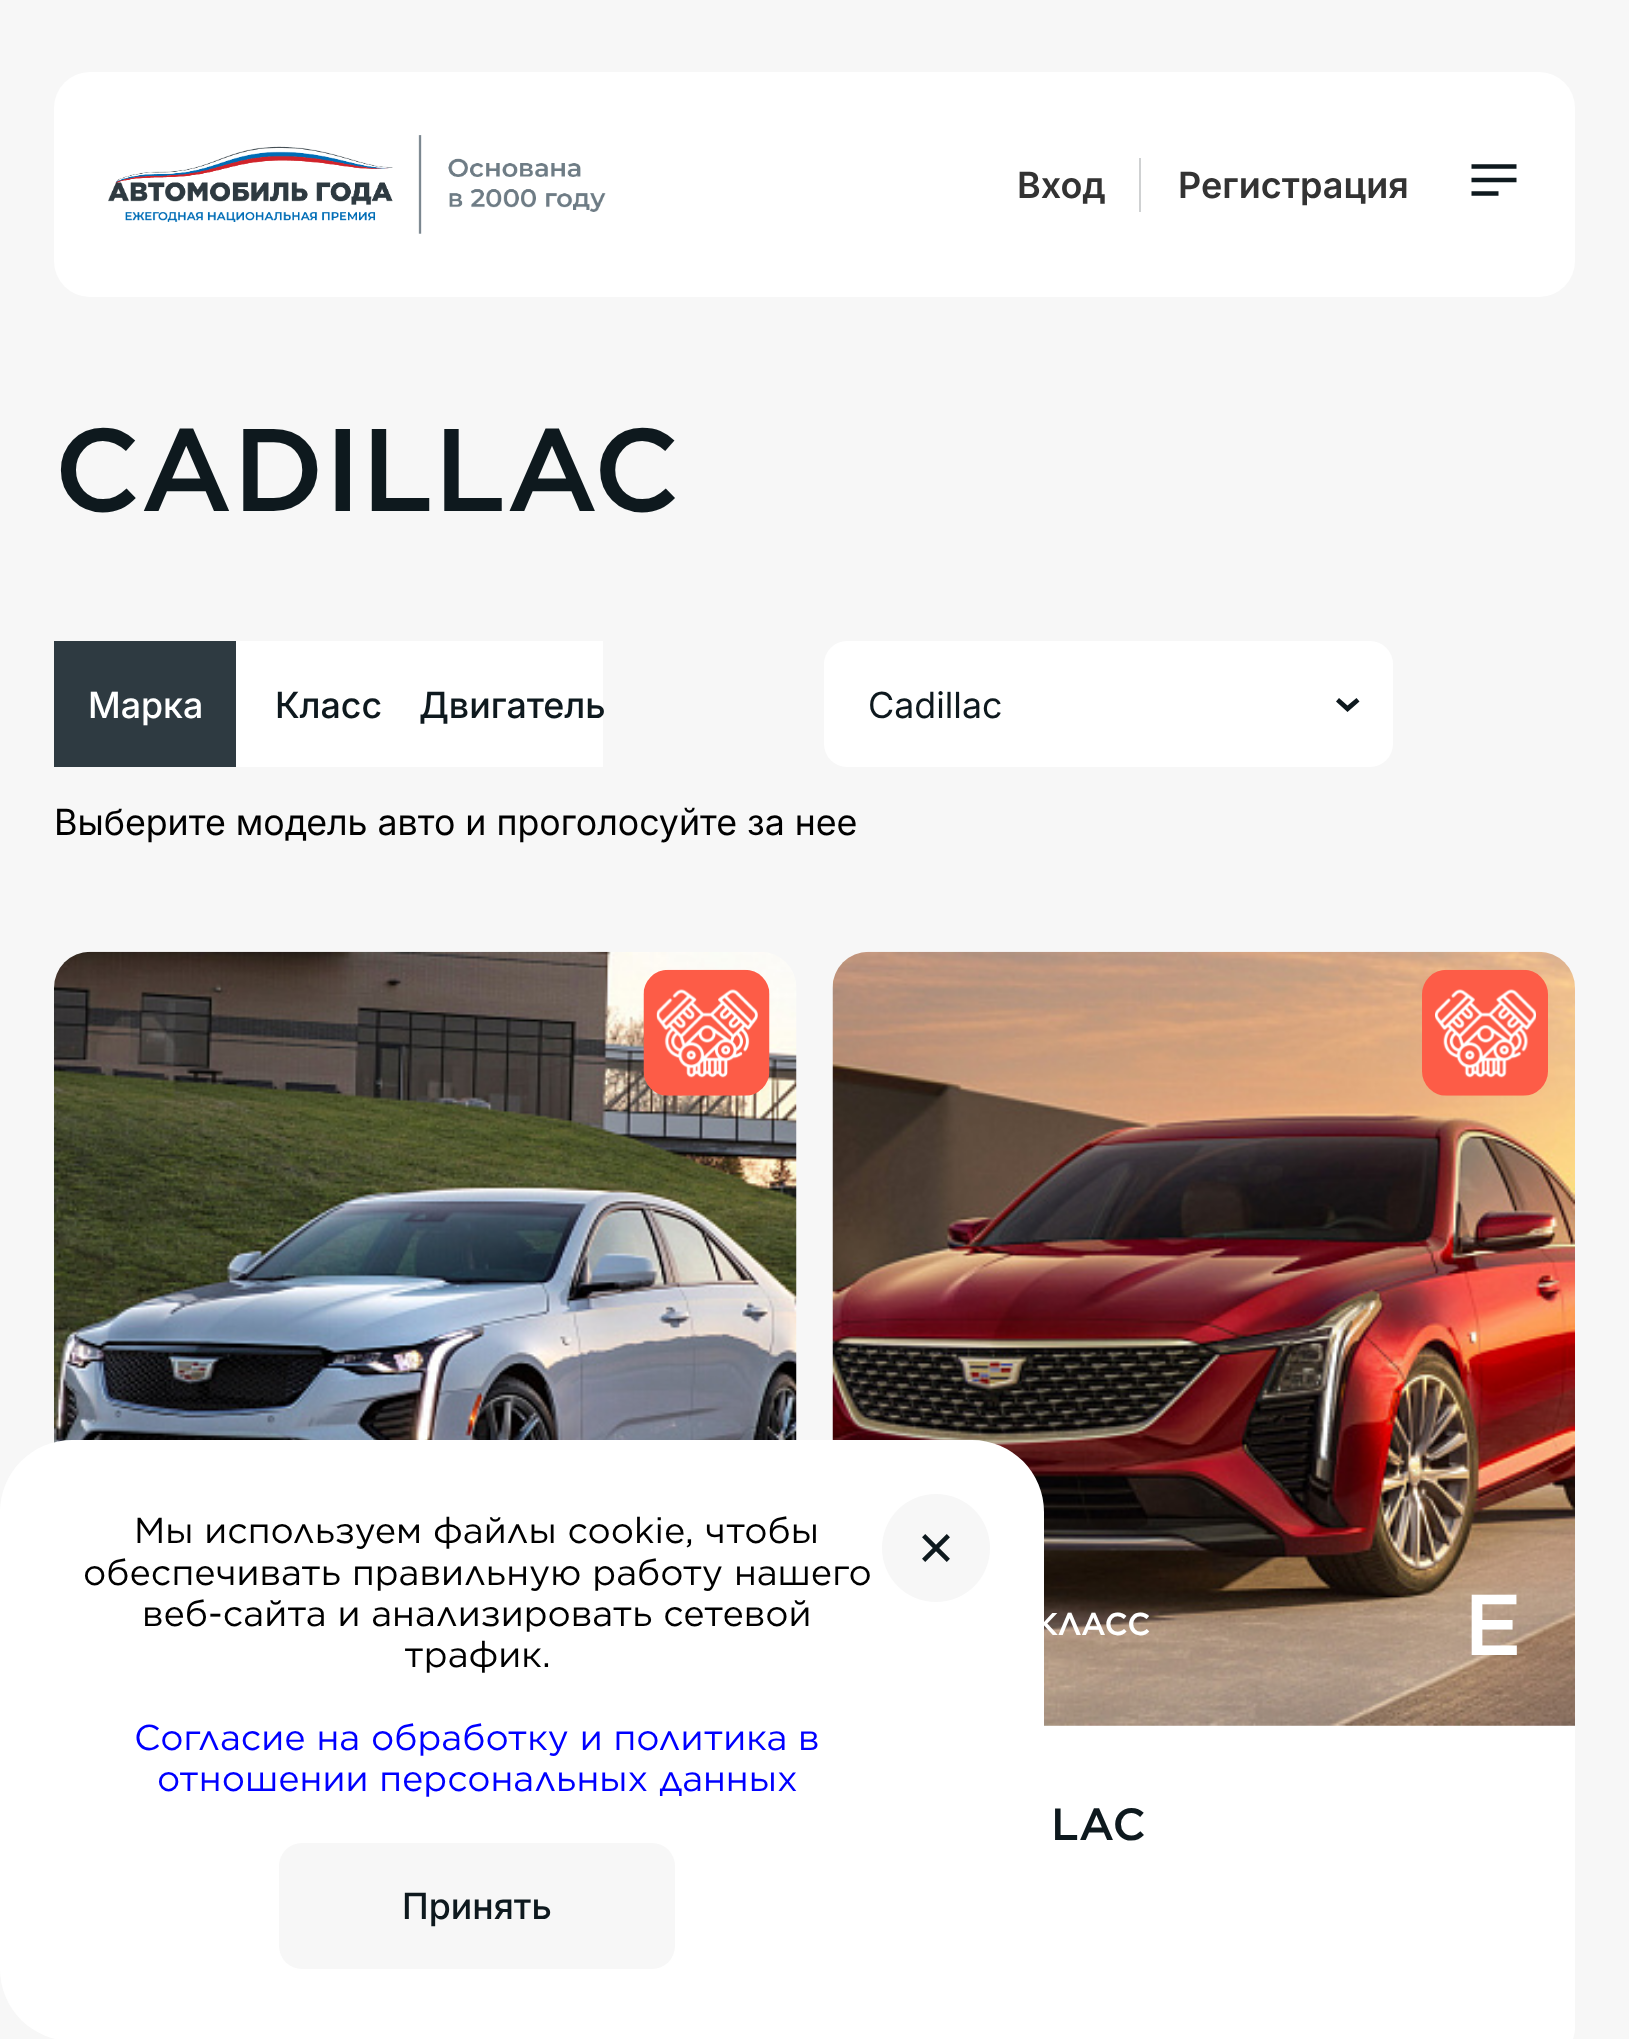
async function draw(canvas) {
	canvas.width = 1629;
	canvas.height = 2039;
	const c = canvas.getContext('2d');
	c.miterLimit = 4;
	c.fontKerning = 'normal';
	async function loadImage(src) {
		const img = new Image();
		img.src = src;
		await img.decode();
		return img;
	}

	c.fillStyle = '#f7f7f7';
	c.fillRect(0, 0, 1629, 2039);
	c.fillStyle = '#fff';
	c.beginPath();
	c.roundRect(54, 72, 1521, 225, 36);
	c.fill();
	c.drawImage(await loadImage('img1.png'), 108, 135, 498, 99);
	c.font = '600 36px Inter';
	c.fillStyle = '#333';
	c.fillText('Вход', 1017, 198);
	c.fillStyle = '#cfd1d2';
	c.fillRect(1139, 158, 2, 54);
	c.fillStyle = '#333';
	c.fillText('Регистрация', 1178, 198);
	c.drawImage(await loadImage('img2.png'), 1471, 164, 46, 32);
	c.font = '500 117px Gotham';
	c.fillStyle = '#0e191e';
	c.fillText('CADILLAC', 54, 511);
	c.fillStyle = '#2e3a41';
	c.fillRect(54, 641, 182, 126);
	c.font = '500 36px Inter';
	c.fillStyle = '#fff';
	c.fillText('Марка', 88, 718);
	c.fillRect(236, 641, 367, 126);
	c.fillStyle = '#0e191e';
	c.fillText('Класс', 275, 718);
	c.fillText('Двигатель', 419, 718);
	c.fillStyle = '#fff';
	c.beginPath();
	c.roundRect(824, 641, 569, 126, 23);
	c.fill();
	c.fillStyle = '#0e191e';
	c.beginPath();
	c.moveTo(1359.5, 701.5);
	c.lineTo(1347.5, 712);
	c.lineTo(1336, 701.5);
	c.lineTo(1339, 698);
	c.lineTo(1347.5, 705.5);
	c.lineTo(1356.5, 698);
	c.closePath();
	c.fill('evenodd');
	c.font = '36px Inter';
	c.fillText('Cadillac', 868, 718);
	c.fillStyle = '#000';
	c.fillText('Выберите модель авто и проголосуйте за нее', 54, 835);
	c.drawImage(await loadImage('img3.png'), 54, 951, 743, 492);
	c.drawImage(await loadImage('img4.png'), 643, 969, 127, 127);
	c.drawImage(await loadImage('img6.png'), 832, 951, 743, 775);
	c.drawImage(await loadImage('img5.png'), 1422, 969, 126, 127);
	c.font = '500 31.5px Gotham';
	c.fillStyle = '#fff';
	c.fillText('КЛАСС', 1035, 1635);
	c.font = '500 86px Gotham';
	c.fillText('E', 1464, 1655);
	c.beginPath();
	c.moveTo(833, 1726);
	c.lineTo(1575, 1726);
	c.lineTo(1575, 2027);
	c.bezierCurveTo(1575, 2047, 1559, 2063, 1539, 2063);
	c.lineTo(869, 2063);
	c.bezierCurveTo(849, 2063, 833, 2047, 833, 2027);
	c.closePath();
	c.fill();
	c.font = '500 45px Gotham';
	c.fillStyle = '#0e191e';
	c.fillText('LAC', 1051, 1840);
	c.fillStyle = '#fff';
	c.beginPath();
	c.roundRect(0, 1440, 1044, 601, 72);
	c.fill();
	c.font = '36px Gotham';
	c.fillStyle = '#000';
	for (const [text, x, y] of [
		['Мы используем файлы cookie, чтобы', 134, 1543],
		['обеспечивать правильную работу нашего', 83, 1585],
		['веб-сайта и анализировать сетевой', 142, 1626],
		['трафик.', 404, 1667],
	]) {
		c.fillText(text, x, y);
	}
	c.fillStyle = '#00f';
	c.fillText('Согласие на обработку и политика в', 134, 1750);
	c.fillText('отношении персональных данных', 157, 1791);
	c.fillStyle = '#f7f7f7';
	c.beginPath();
	c.roundRect(279, 1843, 396, 126, 23);
	c.fill();
	c.font = '500 36px Inter';
	c.fillStyle = '#0e191e';
	c.fillText('Принять', 402, 1919);
	c.fillStyle = '#f7f7f7';
	c.beginPath();
	c.arc(936, 1548, 54, 0, 2 * Math.PI);
	c.fill();
	c.drawImage(await loadImage('img7.png'), 922, 1534, 28, 28);
}

draw(document.querySelector('canvas'));
